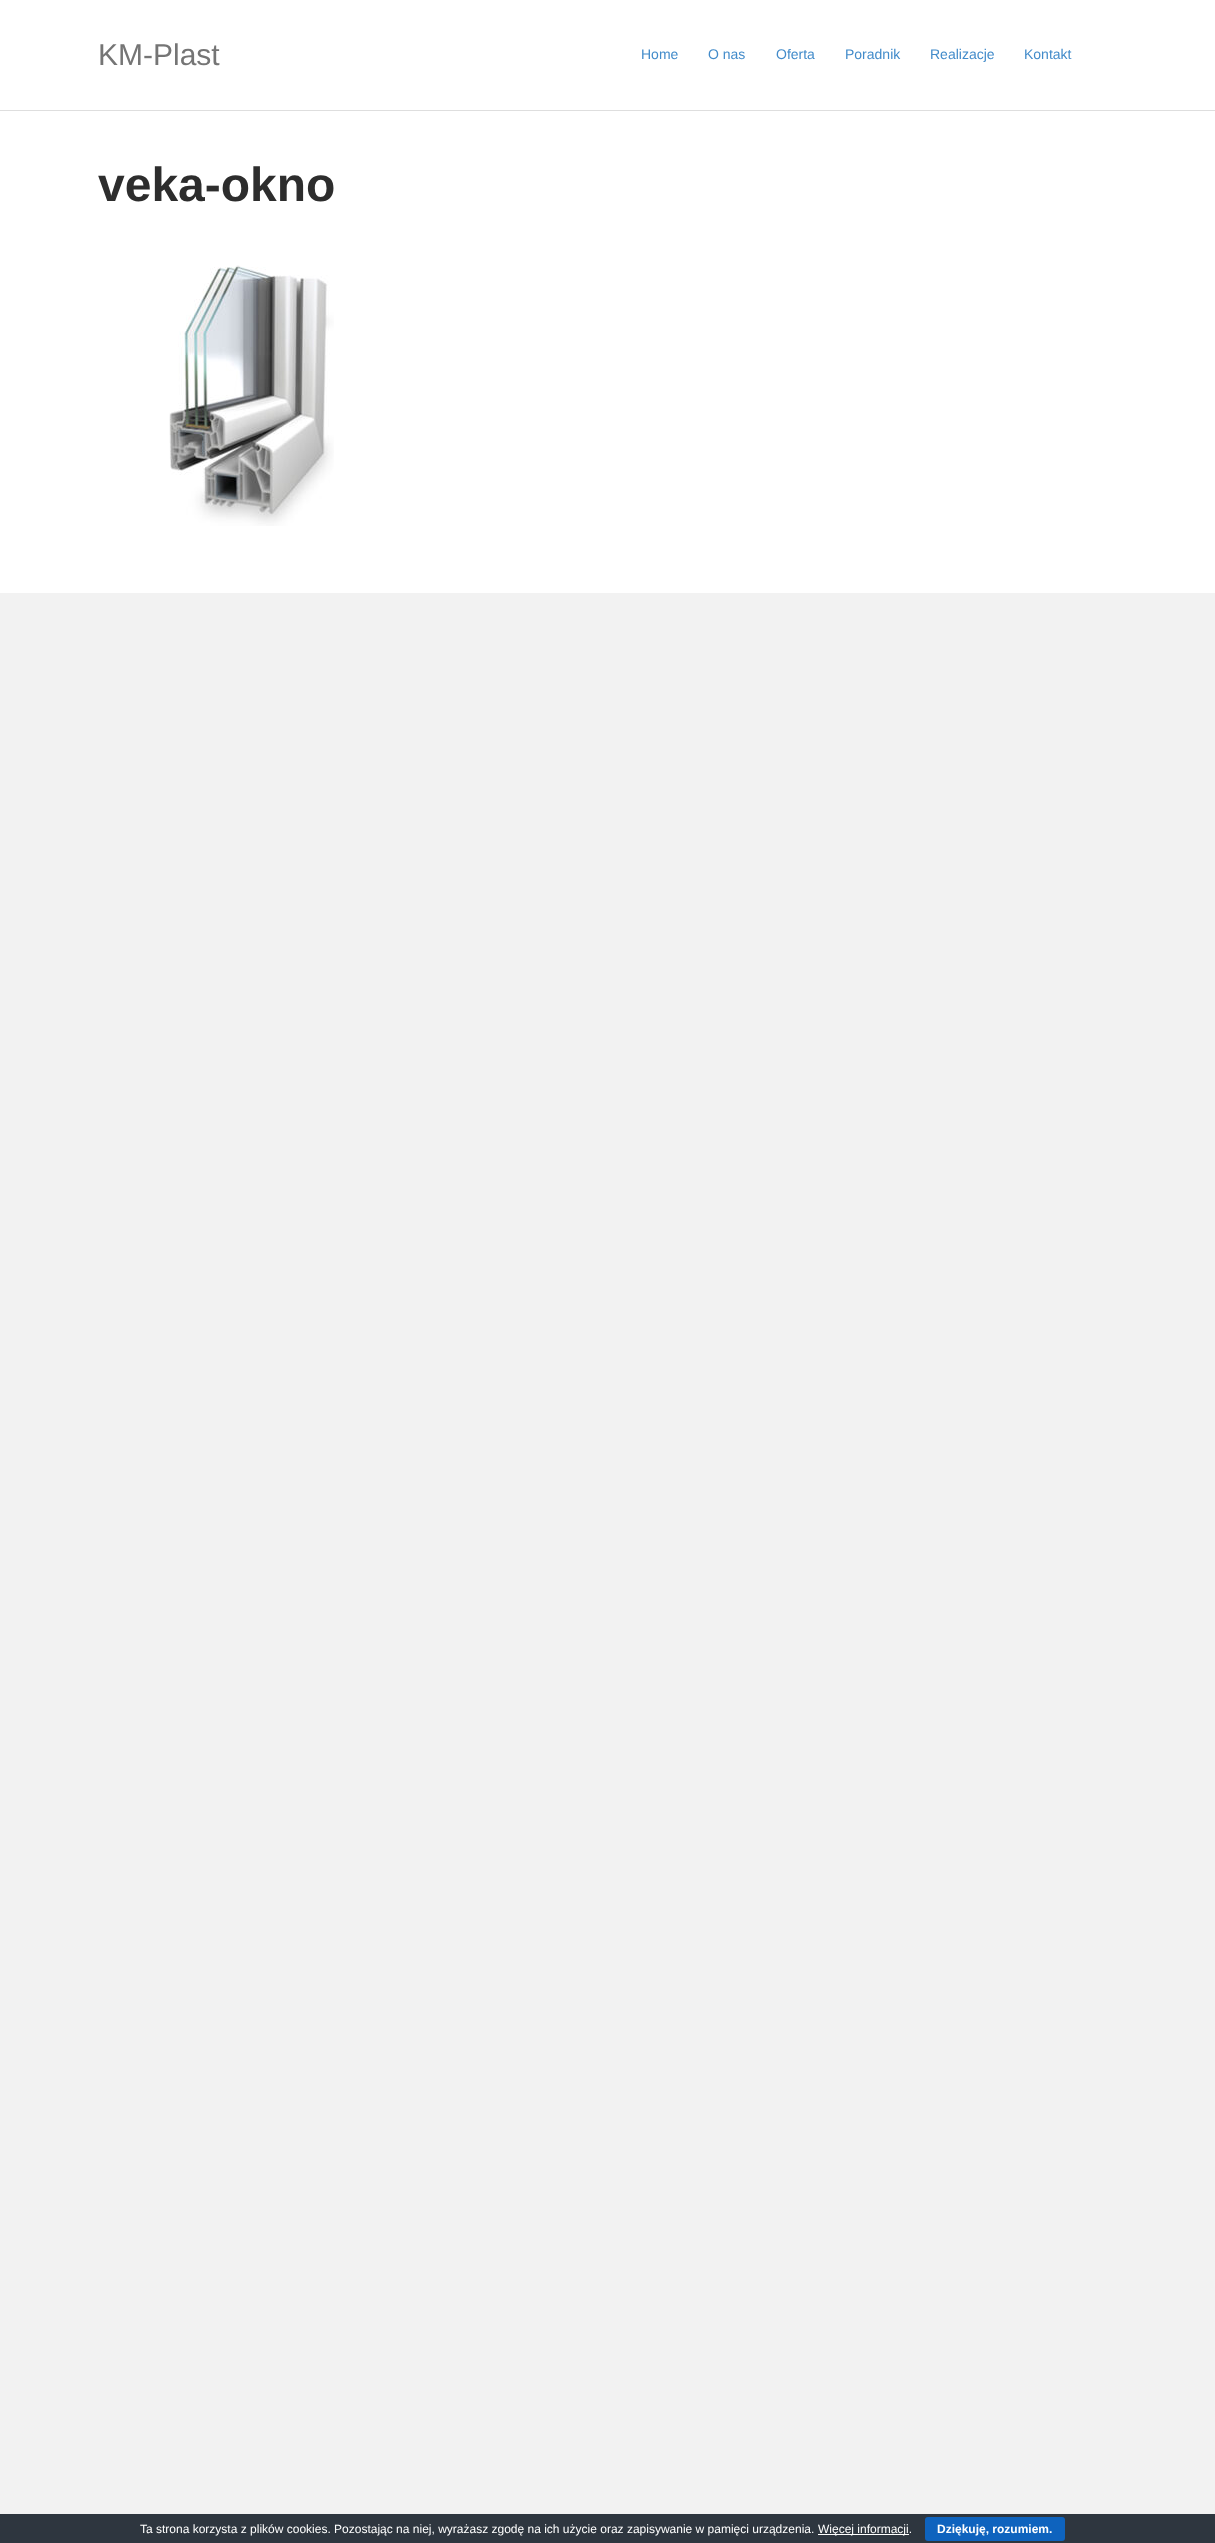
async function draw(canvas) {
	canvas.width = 1215;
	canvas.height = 2543;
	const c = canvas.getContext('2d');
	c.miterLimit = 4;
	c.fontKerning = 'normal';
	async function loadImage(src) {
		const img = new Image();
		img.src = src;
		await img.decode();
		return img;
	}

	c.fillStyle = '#f2f2f2';
	c.fillRect(0, 0, 1215, 2543);
	c.fillStyle = '#fff';
	c.fillRect(0, 0, 1215, 110);
	c.fillStyle = '#dedede';
	c.fillRect(0, 110, 1215, 1);
	c.font = '30px Liberation Sans';
	c.fillStyle = '#757575';
	c.fillText('KM-Plast', 98, 65);
	c.font = '14px Liberation Sans';
	c.fillStyle = '#428bca';
	for (const [text, x, y] of [
		['Home', 641, 59],
		['O nas', 708, 59],
		['Oferta', 776, 59],
		['Poradnik', 845, 59],
		['Realizacje', 930, 59],
		['Kontakt', 1024, 59],
	]) {
		c.fillText(text, x, y);
	}
	c.fillStyle = '#fff';
	c.fillRect(0, 111, 1215, 482);
	c.font = 'bold 48px Liberation Sans';
	c.fillStyle = '#2d2d2d';
	c.fillText('veka-okno', 98, 201);
	c.drawImage(await loadImage('img1.png'), 169, 265, 165, 261);
	c.fillStyle = '#2e363f';
	c.fillRect(0, 2514, 1215, 29);
	c.font = '12px Liberation Sans';
	c.fillStyle = '#fff';
	c.fillText('Ta strona korzysta z plików cookies. Pozostając na niej, wyrażasz zgodę na ich użycie oraz zapisywanie w pamięci urządzenia.', 140, 2533);
	c.fillRect(818, 2534, 91, 1);
	c.fillText('Więcej informacji.', 818, 2533);
	c.fillStyle = '#0e63be';
	c.beginPath();
	c.roundRect(925, 2517, 140, 24, 3);
	c.fill();
	c.font = 'bold 12px Liberation Sans';
	c.fillStyle = '#fff';
	c.fillText('Dziękuję, rozumiem.', 937, 2533);
}

draw(document.querySelector('canvas'));
